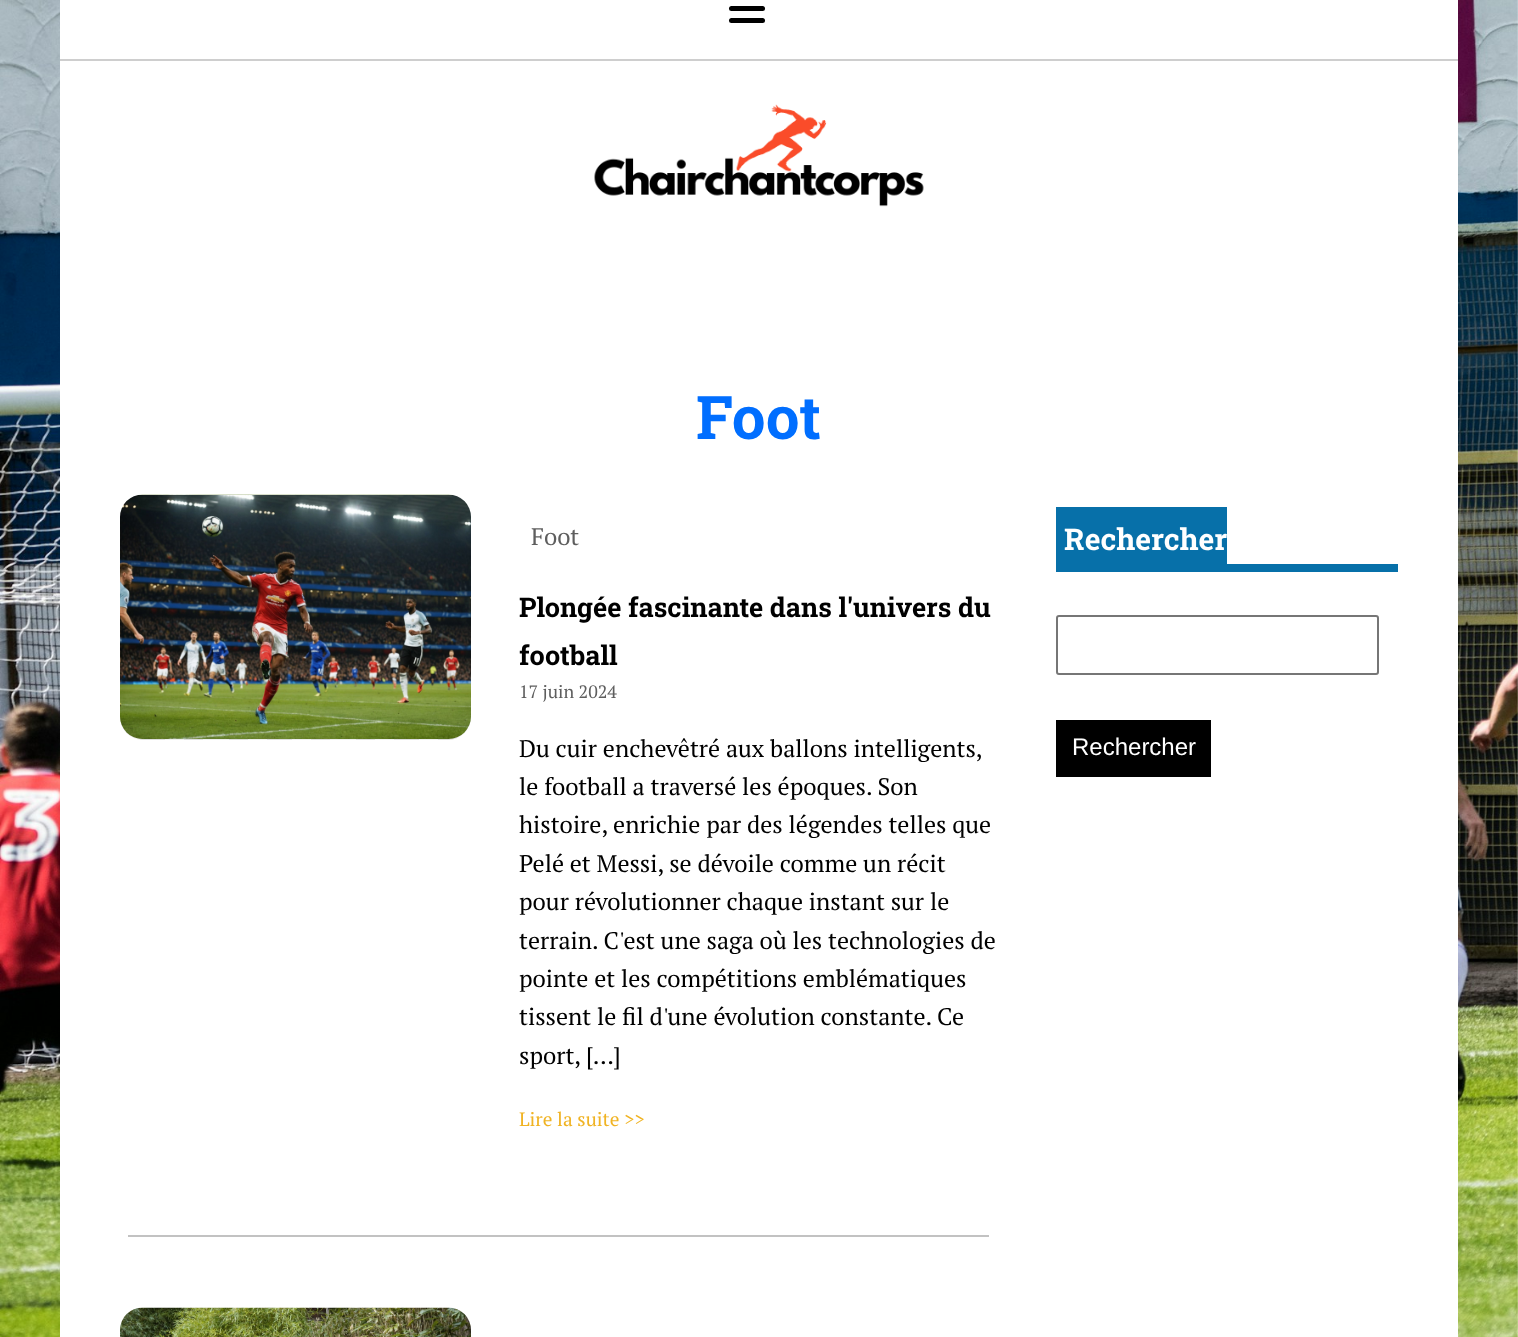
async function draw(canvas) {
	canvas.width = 1518;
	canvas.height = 1337;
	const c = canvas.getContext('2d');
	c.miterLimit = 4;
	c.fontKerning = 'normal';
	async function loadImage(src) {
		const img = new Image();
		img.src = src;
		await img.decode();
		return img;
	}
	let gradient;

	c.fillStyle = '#fff';
	c.fillRect(0, 0, 1518, 1337);
	c.drawImage(await loadImage('img1.png'), 0, 0, 1518, 1337);
	c.fillRect(60, 0, 1398, 1337);
	c.fillStyle = '#cecece';
	c.fillRect(60, 59, 1398, 2);
	c.fillStyle = '#000';
	c.beginPath();
	c.roundRect(729, 6, 36, 5, 2.5);
	c.fill();
	c.beginPath();
	c.roundRect(729, 18, 36, 5, 2.5);
	c.fill();
	c.drawImage(await loadImage('img2.png'), 594, 104, 330, 103);
	c.font = 'bold 60px Roboto Slab';
	c.fillStyle = '#006eff';
	c.fillText('Foot', 696, 439);
	c.fillStyle = '#c2c2c2';
	c.fillRect(128, 1235, 861, 2);
	gradient = c.createLinearGradient(147, 766, 465, 448);
	gradient.addColorStop(0, '#eee');
	gradient.addColorStop(0.03, '#eee');
	gradient.addColorStop(0.03, '#ddd');
	gradient.addColorStop(0.07, '#ddd');
	gradient.addColorStop(0.07, '#eee');
	gradient.addColorStop(0.1, '#eee');
	gradient.addColorStop(0.1, '#ddd');
	gradient.addColorStop(0.13, '#ddd');
	gradient.addColorStop(0.13, '#eee');
	gradient.addColorStop(0.17, '#eee');
	gradient.addColorStop(0.17, '#ddd');
	gradient.addColorStop(0.2, '#ddd');
	gradient.addColorStop(0.2, '#eee');
	gradient.addColorStop(0.23, '#eee');
	gradient.addColorStop(0.23, '#ddd');
	gradient.addColorStop(0.27, '#ddd');
	gradient.addColorStop(0.27, '#eee');
	gradient.addColorStop(0.3, '#eee');
	gradient.addColorStop(0.3, '#ddd');
	gradient.addColorStop(0.33, '#ddd');
	gradient.addColorStop(0.33, '#eee');
	gradient.addColorStop(0.37, '#eee');
	gradient.addColorStop(0.37, '#ddd');
	gradient.addColorStop(0.4, '#ddd');
	gradient.addColorStop(0.4, '#eee');
	gradient.addColorStop(0.43, '#eee');
	gradient.addColorStop(0.43, '#ddd');
	gradient.addColorStop(0.47, '#ddd');
	gradient.addColorStop(0.47, '#eee');
	gradient.addColorStop(0.5, '#eee');
	gradient.addColorStop(0.5, '#ddd');
	gradient.addColorStop(0.53, '#ddd');
	gradient.addColorStop(0.53, '#eee');
	gradient.addColorStop(0.57, '#eee');
	gradient.addColorStop(0.57, '#ddd');
	gradient.addColorStop(0.6, '#ddd');
	gradient.addColorStop(0.6, '#eee');
	gradient.addColorStop(0.63, '#eee');
	gradient.addColorStop(0.63, '#ddd');
	gradient.addColorStop(0.67, '#ddd');
	gradient.addColorStop(0.67, '#eee');
	gradient.addColorStop(0.7, '#eee');
	gradient.addColorStop(0.7, '#ddd');
	gradient.addColorStop(0.73, '#ddd');
	gradient.addColorStop(0.73, '#eee');
	gradient.addColorStop(0.77, '#eee');
	gradient.addColorStop(0.77, '#ddd');
	gradient.addColorStop(0.8, '#ddd');
	gradient.addColorStop(0.8, '#eee');
	gradient.addColorStop(0.83, '#eee');
	gradient.addColorStop(0.83, '#ddd');
	gradient.addColorStop(0.87, '#ddd');
	gradient.addColorStop(0.87, '#eee');
	gradient.addColorStop(0.9, '#eee');
	gradient.addColorStop(0.9, '#ddd');
	gradient.addColorStop(0.93, '#ddd');
	gradient.addColorStop(0.93, '#eee');
	gradient.addColorStop(0.97, '#eee');
	gradient.addColorStop(0.97, '#ddd');
	gradient.addColorStop(1, '#ddd');
	c.fillStyle = gradient;
	c.beginPath();
	c.roundRect(120, 495, 351, 245, 23);
	c.fill();
	c.drawImage(await loadImage('img3.png'), 120, 494, 351, 245);
	c.font = '24px PT Serif';
	c.fillStyle = '#5e5e5e';
	c.fillText('Foot', 531, 545);
	c.font = 'bold 27px Roboto Slab';
	c.fillStyle = '#000';
	c.fillText('Plongée fascinante dans l\'univers du', 519, 617);
	c.fillText('football', 519, 665);
	c.font = '18px PT Serif';
	c.fillStyle = '#5e5e5e';
	c.fillText('17 juin 2024', 519, 698);
	c.font = '24px PT Serif';
	c.fillStyle = '#000';
	for (const [text, x, y] of [
		['Du cuir enchevêtré aux ballons intelligents,', 519, 757],
		['le football a traversé les époques. Son', 519, 795],
		['histoire, enrichie par des légendes telles que', 519, 833],
		['Pelé et Messi, se dévoile comme un récit', 519, 872],
		['pour révolutionner chaque instant sur le', 519, 910],
		['terrain. C\'est une saga où les technologies de', 519, 949],
		['pointe et les compétitions emblématiques', 519, 987],
		['tissent le fil d\'une évolution constante. Ce', 519, 1025],
		['sport, […]', 519, 1064],
	]) {
		c.fillText(text, x, y);
	}
	c.font = '19.25px PT Serif';
	c.fillStyle = '#f0b323';
	c.fillText('Lire la suite >>', 519, 1126);
	c.drawImage(await loadImage('img4.png'), 120, 1307, 351, 30);
	c.fillStyle = '#0770a9';
	c.fillRect(1056, 507, 171, 57);
	c.font = 'bold 30px Roboto Slab';
	c.fillStyle = '#fff';
	c.fillText('Rechercher', 1064, 550);
	c.fillStyle = '#0770a9';
	c.fillRect(1056, 564, 342, 8);
	c.beginPath();
	c.roundRect(1057, 616, 321, 58, 2);
	c.strokeStyle = '#767676';
	c.lineWidth = 2;
	c.stroke();
	c.fillStyle = '#000';
	c.fillRect(1056, 720, 155, 57);
	c.font = '24px Liberation Sans';
	c.fillStyle = '#fff';
	c.fillText('Rechercher', 1072, 755);
}

draw(document.querySelector('canvas'));
